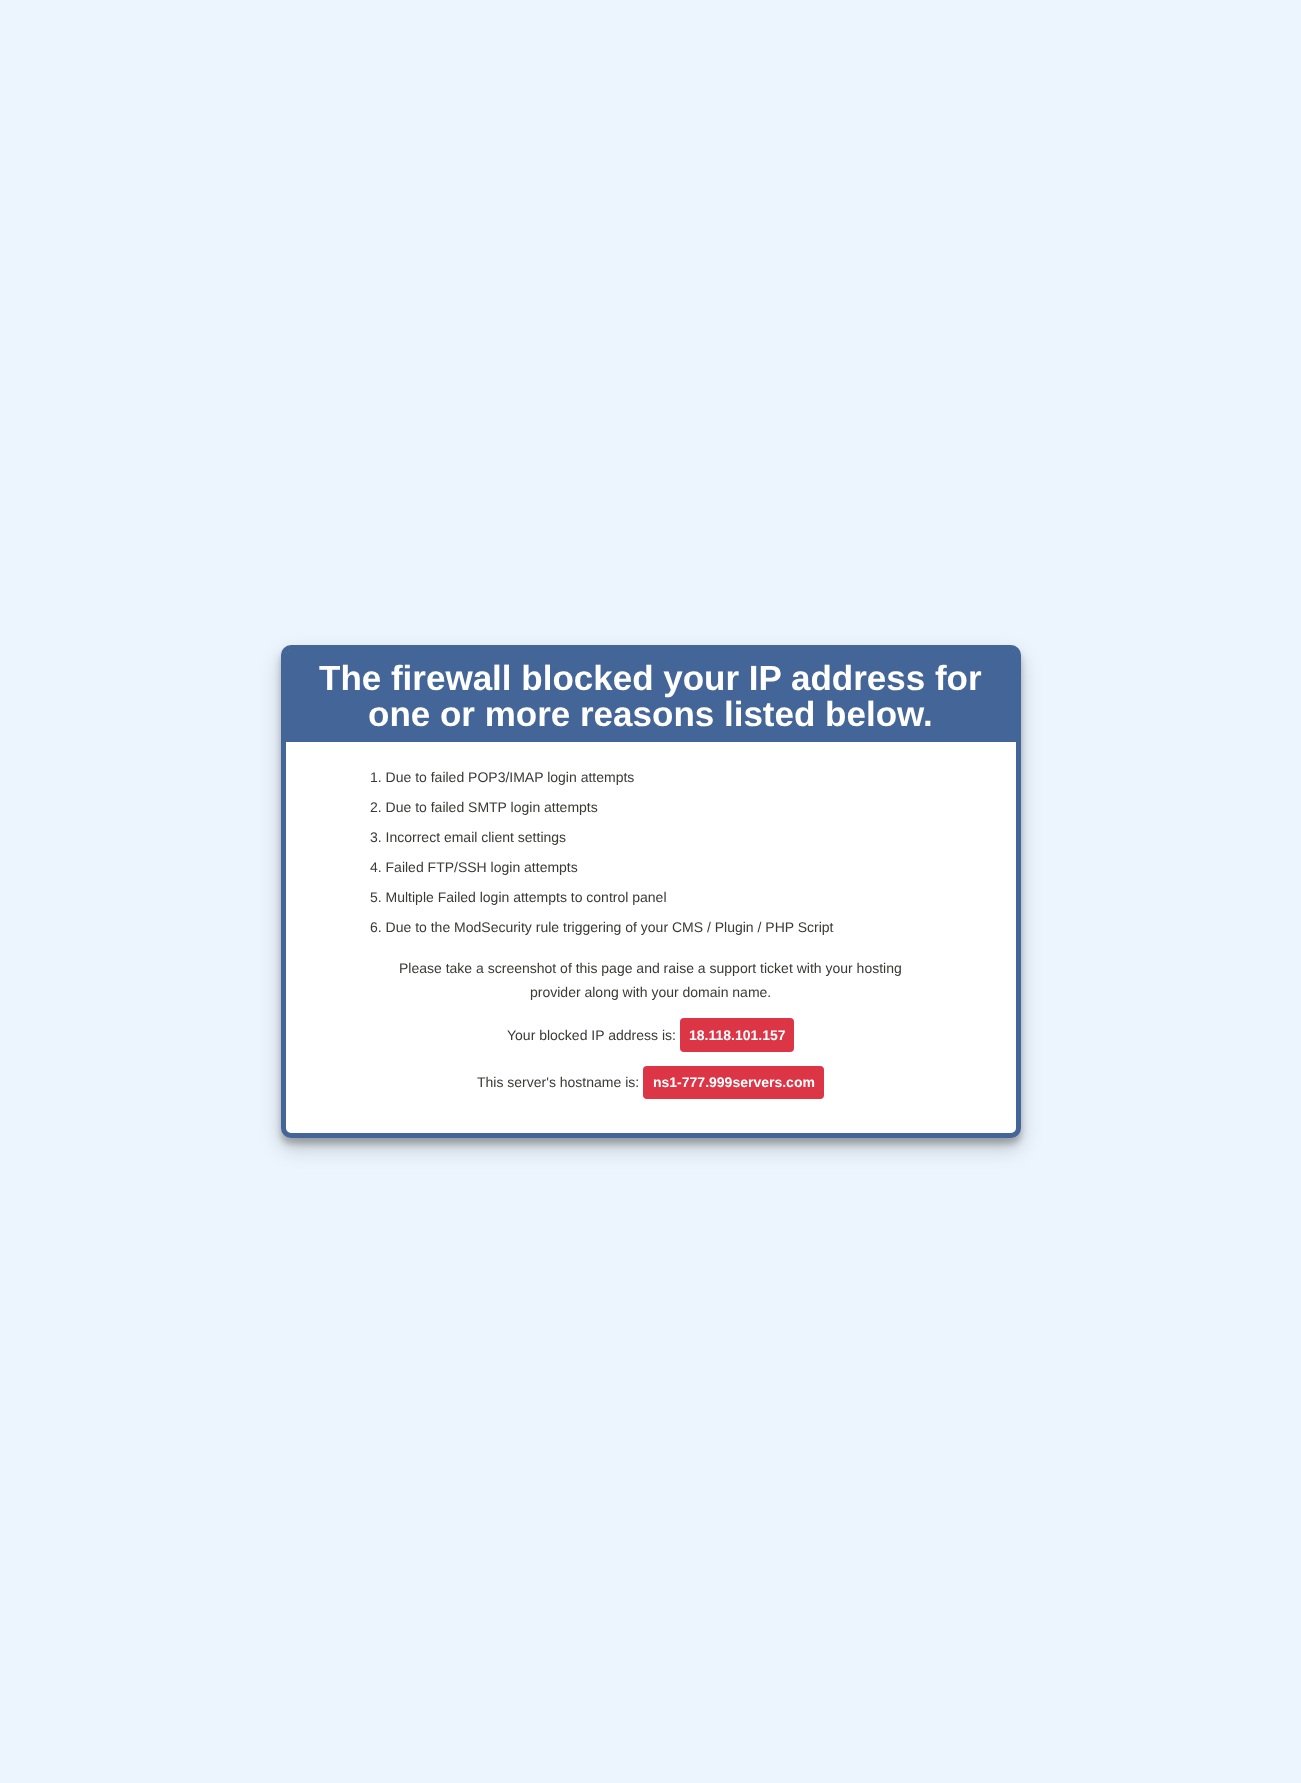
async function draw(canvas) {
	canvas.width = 1301;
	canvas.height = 1783;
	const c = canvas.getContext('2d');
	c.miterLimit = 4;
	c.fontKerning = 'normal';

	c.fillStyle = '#ecf4fd';
	c.fillRect(0, 0, 1301, 1783);
	c.fillStyle = '#0000003b';
	c.filter = 'blur(3px)';
	c.beginPath();
	c.roundRect(281, 651, 740, 493, 10);
	c.fill();
	c.filter = 'none';
	c.fillStyle = '#00000030';
	c.filter = 'blur(10px)';
	c.beginPath();
	c.roundRect(281, 655, 740, 493, 10);
	c.fill();
	c.filter = 'none';
	c.fillStyle = '#fff';
	c.beginPath();
	c.roundRect(283.5, 647.5, 735, 488, 7.5);
	c.fill();
	c.strokeStyle = '#446597';
	c.lineWidth = 5;
	c.stroke();
	c.fillStyle = '#446597';
	c.beginPath();
	c.roundRect(286, 650, 730, 92, [4, 4, 0, 0]);
	c.fill();
	c.font = 'bold 35px Liberation Sans';
	c.fillStyle = '#fff';
	c.fillText('The firewall blocked your IP address for', 319, 690);
	c.fillText('one or more reasons listed below.', 368, 726);
	c.font = '14px Liberation Sans';
	c.fillStyle = '#393a36';
	for (const [text, x, y] of [
		['1. Due to failed POP3/IMAP login attempts', 370, 782],
		['2. Due to failed SMTP login attempts', 370, 812],
		['3. Incorrect email client settings', 370, 842],
		['4. Failed FTP/SSH login attempts', 370, 872],
		['5. Multiple Failed login attempts to control panel', 370, 902],
		['6. Due to the ModSecurity rule triggering of your CMS / Plugin / PHP Script', 370, 932],
		['Please take a screenshot of this page and raise a support ticket with your hosting', 399, 973],
		['provider along with your domain name.', 530, 997],
		['Your blocked IP address is:', 507, 1040],
	]) {
		c.fillText(text, x, y);
	}
	c.fillStyle = '#dc3545';
	c.beginPath();
	c.roundRect(680, 1018, 114, 34, 4);
	c.fill();
	c.font = 'bold 14px Liberation Sans';
	c.fillStyle = '#fff';
	c.fillText('18.118.101.157', 689, 1040);
	c.font = '14px Liberation Sans';
	c.fillStyle = '#393a36';
	c.fillText('This server\'s hostname is:', 477, 1087);
	c.fillStyle = '#dc3545';
	c.beginPath();
	c.roundRect(643, 1066, 181, 33, 4);
	c.fill();
	c.font = 'bold 14px Liberation Sans';
	c.fillStyle = '#fff';
	c.fillText('ns1-777.999servers.com', 653, 1087);
}

draw(document.querySelector('canvas'));
